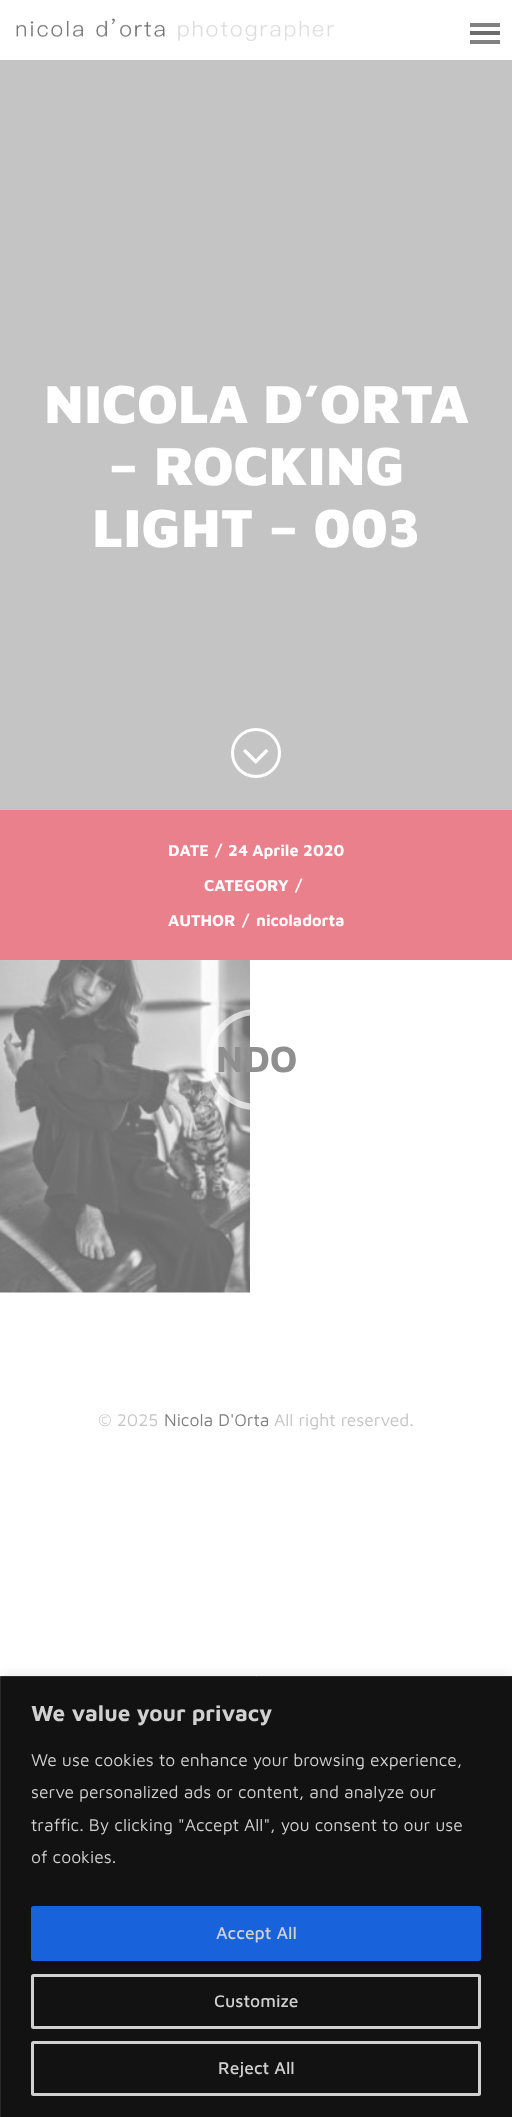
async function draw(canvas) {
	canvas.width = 512;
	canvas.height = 2117;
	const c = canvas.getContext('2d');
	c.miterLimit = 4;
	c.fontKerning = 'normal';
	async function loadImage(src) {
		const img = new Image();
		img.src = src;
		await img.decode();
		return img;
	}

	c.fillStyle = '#fff';
	c.fillRect(0, 0, 512, 2117);
	c.drawImage(await loadImage('img1.png'), 16, 18, 319, 23);
	for (const [x, y, w, h, color] of [
		[470, 31, 30, 4, '#6b6b6b'],
		[470, 23, 30, 4, '#818181'],
		[470, 40, 30, 4, '#818181'],
		[0, 60, 512, 750, '#c4c4c4'],
	]) {
		c.fillStyle = color;
		c.fillRect(x, y, w, h);
	}
	c.font = '900 55px Maven Pro';
	c.fillStyle = '#fff';
	for (const [text, x, y] of [
		['NICOLA D’ORTA', 44, 423],
		['– ROCKING', 108, 485],
		['LIGHT – 003', 92, 547],
	]) {
		c.fillText(text, x, y);
	}
	c.beginPath();
	c.arc(256, 753, 23.5, 0, 2 * Math.PI);
	c.strokeStyle = '#fff';
	c.lineWidth = 3;
	c.stroke();
	c.drawImage(await loadImage('img2.png'), 243, 749, 26, 15);
	c.fillStyle = '#ea808c';
	c.fillRect(0, 810, 512, 150);
	c.font = 'bold 16.25px Maven Pro';
	c.fillStyle = '#fff';
	for (const [text, x, y] of [
		['DATE', 168, 856],
		['/', 215, 856],
		['24 Aprile 2020', 228, 856],
		['CATEGORY', 204, 891],
		['/', 295, 891],
		['AUTHOR', 168, 926],
		['/', 242, 926],
		['nicoladorta', 256, 926],
	]) {
		c.fillText(text, x, y);
	}
	c.drawImage(await loadImage('img3.png'), 0, 960, 250, 333);
	c.beginPath();
	c.moveTo(256, 1012);
	c.bezierCurveTo(283.5, 1012, 304.5, 1033, 304.5, 1059.5);
	c.bezierCurveTo(304.5, 1086, 283.5, 1107, 257, 1107);
	c.bezierCurveTo(230.5, 1107, 209.5, 1086, 209.5, 1059.5);
	c.bezierCurveTo(209.5, 1033, 230.5, 1012, 257, 1012);
	c.lineTo(256, 1012);
	c.strokeStyle = '#ffffff6b';
	c.lineWidth = 6.2;
	c.stroke();
	c.beginPath();
	c.moveTo(256, 1012);
	c.bezierCurveTo(283.5, 1012, 304.5, 1033, 304.5, 1059.5);
	c.bezierCurveTo(304.5, 1086, 283.5, 1107, 257, 1107);
	c.bezierCurveTo(230.5, 1107, 209.5, 1086, 209.5, 1059.5);
	c.bezierCurveTo(209.5, 1033, 230.5, 1012, 257, 1012);
	c.lineTo(256, 1012);
	c.stroke();
	c.font = 'bold 37.5px Maven Pro';
	c.fillStyle = '#8f8f8f';
	c.fillText('NDO', 216, 1072);
	c.font = '17.5px Maven Pro';
	c.fillStyle = '#c4c4c4';
	c.fillText('© 2025', 98, 1426);
	c.fillStyle = '#7f7f7f';
	c.fillText('Nicola D\'Orta', 164, 1426);
	c.fillStyle = '#c4c4c4';
	c.fillText('All right reserved.', 274, 1426);
	c.fillStyle = '#acabab4d';
	c.filter = 'blur(6px)';
	c.beginPath();
	c.rect(0, 1675, 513, 441);
	c.fill();
	c.filter = 'none';
	c.fillStyle = '#121212';
	c.beginPath();
	c.rect(0.5, 1676.5, 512, 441);
	c.fill();
	c.strokeStyle = '#2a2a2a';
	c.lineWidth = 1;
	c.stroke();
	c.font = 'bold 22.5px Maven Pro';
	c.fillStyle = '#d0d0d0';
	c.fillText('We value your privacy', 31, 1721);
	c.font = '17.5px Maven Pro';
	for (const [text, x, y] of [
		['We use cookies to enhance your browsing experience,', 31, 1766],
		['serve personalized ads or content, and analyze our', 31, 1798],
		['traffic. By clicking "Accept All", you consent to our use', 31, 1831],
		['of cookies.', 31, 1863],
	]) {
		c.fillText(text, x, y);
	}
	c.fillStyle = '#1863dc';
	c.beginPath();
	c.roundRect(32.5, 1907.5, 447, 52, 1);
	c.fill();
	c.strokeStyle = '#1863dc';
	c.lineWidth = 3;
	c.stroke();
	c.font = '500 17.5px Maven Pro';
	c.fillStyle = '#d0d0d0';
	c.fillText('Accept All', 216, 1939);
	c.beginPath();
	c.roundRect(32.5, 1975.5, 447, 52, 1);
	c.strokeStyle = '#d0d0d0';
	c.stroke();
	c.fillText('Customize', 214, 2007);
	c.beginPath();
	c.roundRect(32.5, 2042.5, 447, 52, 1);
	c.stroke();
	c.fillText('Reject All', 218, 2074);
}

draw(document.querySelector('canvas'));
